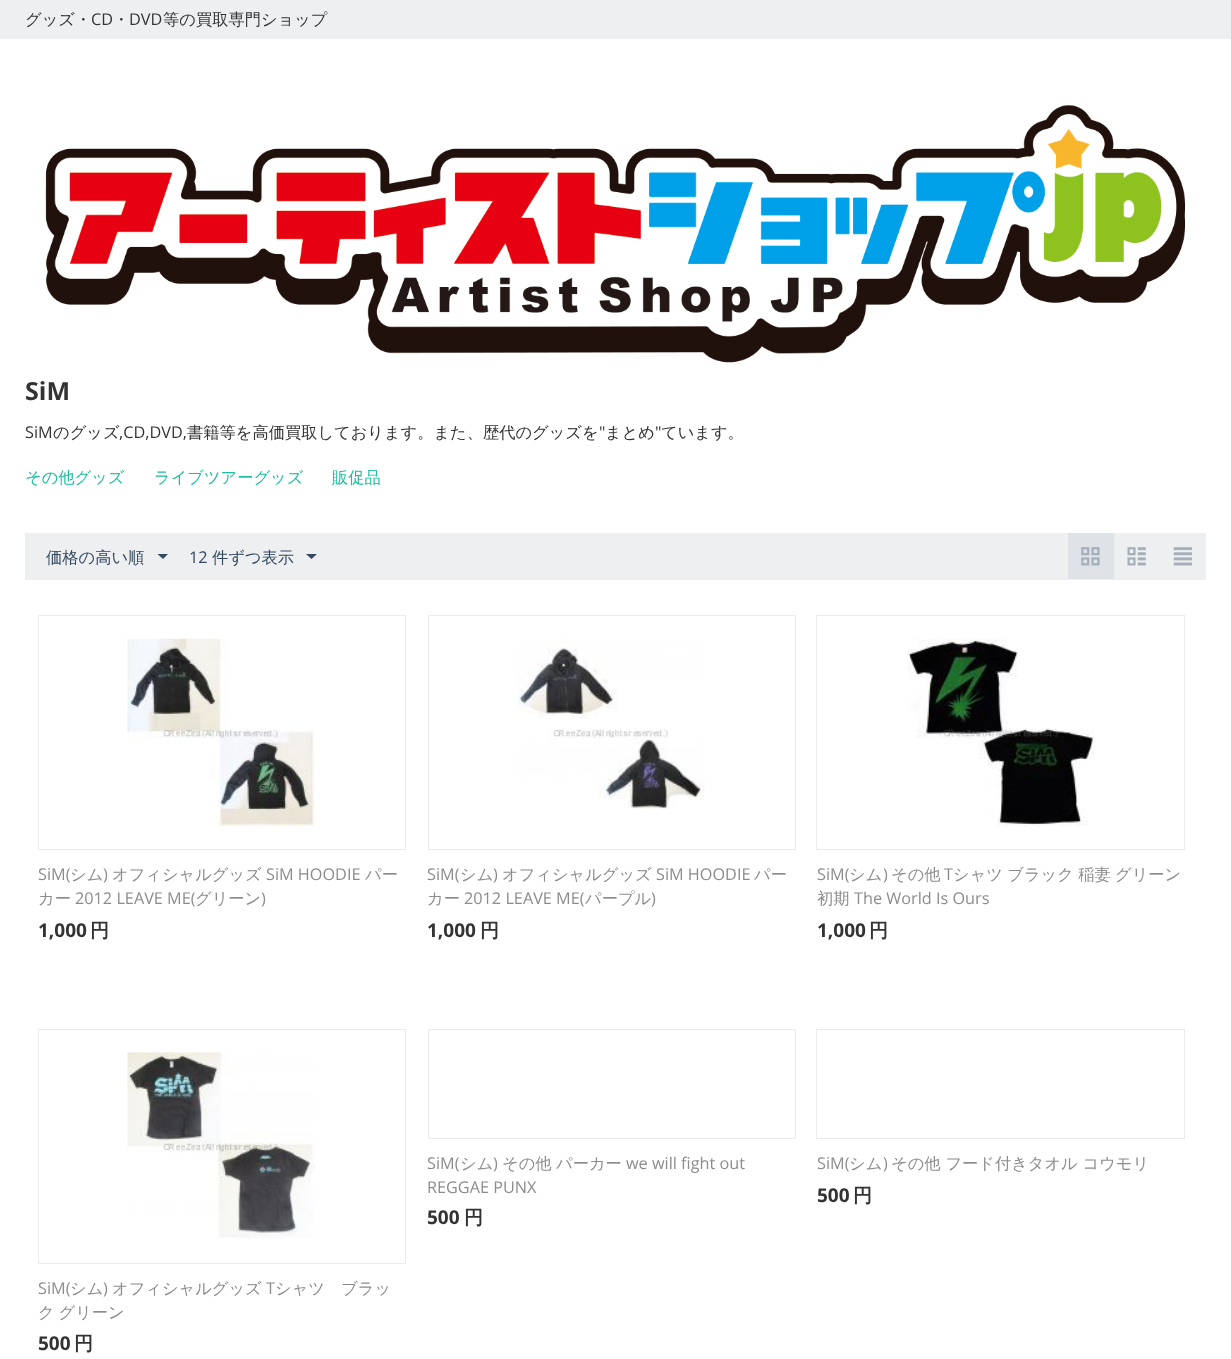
async function draw(canvas) {
	canvas.width = 1231;
	canvas.height = 1359;
	const c = canvas.getContext('2d');
	c.miterLimit = 4;
	c.fontKerning = 'normal';
	async function loadImage(src) {
		const img = new Image();
		img.src = src;
		await img.decode();
		return img;
	}

	c.fillStyle = '#fff';
	c.fillRect(0, 0, 1231, 1359);
	c.fillStyle = '#edeff1';
	c.fillRect(0, 0, 1231, 39);
	c.font = '500 16.25px WenQuanYi Zen Hei';
	c.fillStyle = '#333';
	c.fillText('グッズ・', 25, 25);
	c.font = '16.25px Open Sans';
	c.fillText('CD', 91, 25);
	c.font = '500 16.25px WenQuanYi Zen Hei';
	c.fillText('・', 113, 25);
	c.font = '16.25px Open Sans';
	c.fillText('DVD', 129, 25);
	c.font = '500 16.25px WenQuanYi Zen Hei';
	c.fillText('等の買取専門ショップ', 163, 25);
	c.drawImage(await loadImage('img1.png'), 45, 105, 1141, 258);
	c.font = 'bold 25px Open Sans';
	c.fillText('SiM', 25, 400);
	c.font = '16.25px Open Sans';
	c.fillText('SiM', 25, 438);
	c.font = '500 16.25px WenQuanYi Zen Hei';
	c.fillText('のグッズ', 53, 438);
	c.font = '16.25px Open Sans';
	c.fillText(',CD,DVD,', 119, 438);
	c.font = '500 16.25px WenQuanYi Zen Hei';
	c.fillText('書籍等を高価買取しております。また、歴代のグッズを', 187, 438);
	c.font = '16.25px Open Sans';
	c.fillText('"', 599, 438);
	c.font = '500 16.25px WenQuanYi Zen Hei';
	c.fillText('まとめ', 605, 438);
	c.font = '16.25px Open Sans';
	c.fillText('"', 655, 438);
	c.font = '500 16.25px WenQuanYi Zen Hei';
	c.fillText('ています。', 661, 438);
	c.fillStyle = '#1abc9c';
	for (const [text, x, y] of [
		['その他グッズ', 25, 483],
		['ライブツアーグッズ', 154, 483],
		['販促品', 332, 483],
	]) {
		c.fillText(text, x, y);
	}
	c.fillStyle = '#edeff1';
	c.fillRect(25, 533, 1181, 47);
	c.fillStyle = '#34495e';
	c.fillText('価格の高い順', 46, 563);
	c.beginPath();
	c.moveTo(163, 559);
	c.lineTo(157.5, 554);
	c.lineTo(168, 554);
	c.closePath();
	c.fill();
	c.font = '16.25px Open Sans';
	c.fillText('12', 189, 563);
	c.font = '500 16.25px WenQuanYi Zen Hei';
	c.fillText('件ずつ表示', 212, 563);
	c.beginPath();
	c.moveTo(311.5, 559);
	c.lineTo(306, 554);
	c.lineTo(317, 554);
	c.closePath();
	c.fill();
	c.fillStyle = '#dfe2e6';
	c.fillRect(1068, 533, 46, 46);
	c.drawImage(await loadImage('img2.png'), 1081, 547, 19, 19);
	c.drawImage(await loadImage('img3.png'), 1127, 547, 19, 19);
	c.drawImage(await loadImage('img4.png'), 1173, 547, 19, 19);
	c.strokeStyle = '#ebebeb';
	c.strokeRect(38.5, 615.5, 367, 234);
	c.drawImage(await loadImage('img5.png'), 127, 638, 188, 189);
	c.font = '16.25px Open Sans';
	c.fillStyle = '#8c8c8c';
	c.fillText('SiM(', 38, 880);
	c.font = '500 16.25px WenQuanYi Zen Hei';
	c.fillText('シム', 70, 880);
	c.font = '16.25px Open Sans';
	c.fillText(')', 103, 880);
	c.font = '500 16.25px WenQuanYi Zen Hei';
	c.fillText('オフィシャルグッズ', 112, 880);
	c.font = '16.25px Open Sans';
	c.fillText('SiM HOODIE', 266, 880);
	c.font = '500 16.25px WenQuanYi Zen Hei';
	c.fillText('パー', 365, 880);
	c.fillText('カー', 38, 904);
	c.font = '16.25px Open Sans';
	c.fillText('2012 LEAVE ME(', 75, 904);
	c.font = '500 16.25px WenQuanYi Zen Hei';
	c.fillText('グリーン', 195, 904);
	c.font = '16.25px Open Sans';
	c.fillText(')', 261, 904);
	c.font = 'bold 19px Open Sans';
	c.fillStyle = '#333';
	c.fillText('1,000', 38, 937);
	c.font = 'bold 19px WenQuanYi Zen Hei';
	c.fillText('円', 90, 937);
	c.strokeRect(428.5, 615.5, 367, 234);
	c.drawImage(await loadImage('img6.png'), 517, 639, 188, 170);
	c.font = '16.25px Open Sans';
	c.fillStyle = '#8c8c8c';
	c.fillText('SiM(', 427, 880);
	c.font = '500 16.25px WenQuanYi Zen Hei';
	c.fillText('シム', 460, 880);
	c.font = '16.25px Open Sans';
	c.fillText(')', 493, 880);
	c.font = '500 16.25px WenQuanYi Zen Hei';
	c.fillText('オフィシャルグッズ', 502, 880);
	c.font = '16.25px Open Sans';
	c.fillText('SiM HOODIE', 656, 880);
	c.font = '500 16.25px WenQuanYi Zen Hei';
	c.fillText('パー', 754, 880);
	c.fillText('カー', 427, 904);
	c.font = '16.25px Open Sans';
	c.fillText('2012 LEAVE ME(', 464, 904);
	c.font = '500 16.25px WenQuanYi Zen Hei';
	c.fillText('パープル', 585, 904);
	c.font = '16.25px Open Sans';
	c.fillText(')', 651, 904);
	c.font = 'bold 19px Open Sans';
	c.fillStyle = '#333';
	c.fillText('1,000', 427, 937);
	c.font = 'bold 19px WenQuanYi Zen Hei';
	c.fillText('円', 480, 937);
	c.strokeRect(816.5, 615.5, 368, 234);
	c.drawImage(await loadImage('img7.png'), 907, 639, 188, 188);
	c.font = '16.25px Open Sans';
	c.fillStyle = '#8c8c8c';
	c.fillText('SiM(', 817, 880);
	c.font = '500 16.25px WenQuanYi Zen Hei';
	c.fillText('シム', 849, 880);
	c.font = '16.25px Open Sans';
	c.fillText(')', 883, 880);
	c.font = '500 16.25px WenQuanYi Zen Hei';
	c.fillText('その他', 891, 880);
	c.font = '16.25px Open Sans';
	c.fillText('T', 944, 880);
	c.wordSpacing = '-0.5px';
	c.font = '500 16.25px WenQuanYi Zen Hei';
	c.fillText('シャツ ブラック 稲妻 グリーン', 953, 880);
	c.wordSpacing = '0px';
	c.fillText('初期', 817, 904);
	c.font = '16.25px Open Sans';
	c.fillText('The World Is Ours', 854, 904);
	c.font = 'bold 19px Open Sans';
	c.fillStyle = '#333';
	c.fillText('1,000', 817, 937);
	c.font = 'bold 19px WenQuanYi Zen Hei';
	c.fillText('円', 869, 937);
	c.strokeRect(428.5, 1029.5, 367, 109);
	c.font = '16.25px Open Sans';
	c.fillStyle = '#8c8c8c';
	c.fillText('SiM(', 427, 1169);
	c.font = '500 16.25px WenQuanYi Zen Hei';
	c.fillText('シム', 460, 1169);
	c.font = '16.25px Open Sans';
	c.fillText(')', 493, 1169);
	c.font = '500 16.25px WenQuanYi Zen Hei';
	c.fillText('その他', 502, 1169);
	c.fillText('パーカー', 556, 1169);
	c.font = '16.25px Open Sans';
	c.fillText('we will fight out', 626, 1169);
	c.fillText('REGGAE PUNX', 427, 1193);
	c.font = 'bold 19px Open Sans';
	c.fillStyle = '#333';
	c.fillText('500', 427, 1224);
	c.font = 'bold 19px WenQuanYi Zen Hei';
	c.fillText('円', 464, 1224);
	c.strokeRect(816.5, 1029.5, 368, 109);
	c.font = '16.25px Open Sans';
	c.fillStyle = '#8c8c8c';
	c.fillText('SiM(', 817, 1169);
	c.font = '500 16.25px WenQuanYi Zen Hei';
	c.fillText('シム', 849, 1169);
	c.font = '16.25px Open Sans';
	c.fillText(')', 883, 1169);
	c.font = '500 16.25px WenQuanYi Zen Hei';
	c.fillText('その他 フード付きタオル コウモリ', 891, 1169);
	c.font = 'bold 19px Open Sans';
	c.fillStyle = '#333';
	c.fillText('500', 817, 1202);
	c.font = 'bold 19px WenQuanYi Zen Hei';
	c.fillText('円', 853, 1202);
	c.strokeRect(38.5, 1029.5, 367, 234);
	c.drawImage(await loadImage('img8.png'), 127, 1052, 188, 186);
	c.font = '16.25px Open Sans';
	c.fillStyle = '#8c8c8c';
	c.fillText('SiM(', 38, 1294);
	c.font = '500 16.25px WenQuanYi Zen Hei';
	c.fillText('シム', 70, 1294);
	c.font = '16.25px Open Sans';
	c.fillText(')', 103, 1294);
	c.font = '500 16.25px WenQuanYi Zen Hei';
	c.fillText('オフィシャルグッズ', 112, 1294);
	c.font = '16.25px Open Sans';
	c.fillText('T', 266, 1294);
	c.font = '500 16.25px WenQuanYi Zen Hei';
	c.fillText('シャツ　ブラッ', 275, 1294);
	c.wordSpacing = '-1px';
	c.fillText('ク グリーン', 38, 1318);
	c.wordSpacing = '0px';
	c.font = 'bold 19px Open Sans';
	c.fillStyle = '#333';
	c.fillText('500', 38, 1350);
	c.font = 'bold 19px WenQuanYi Zen Hei';
	c.fillText('円', 74, 1350);
}

draw(document.querySelector('canvas'));
